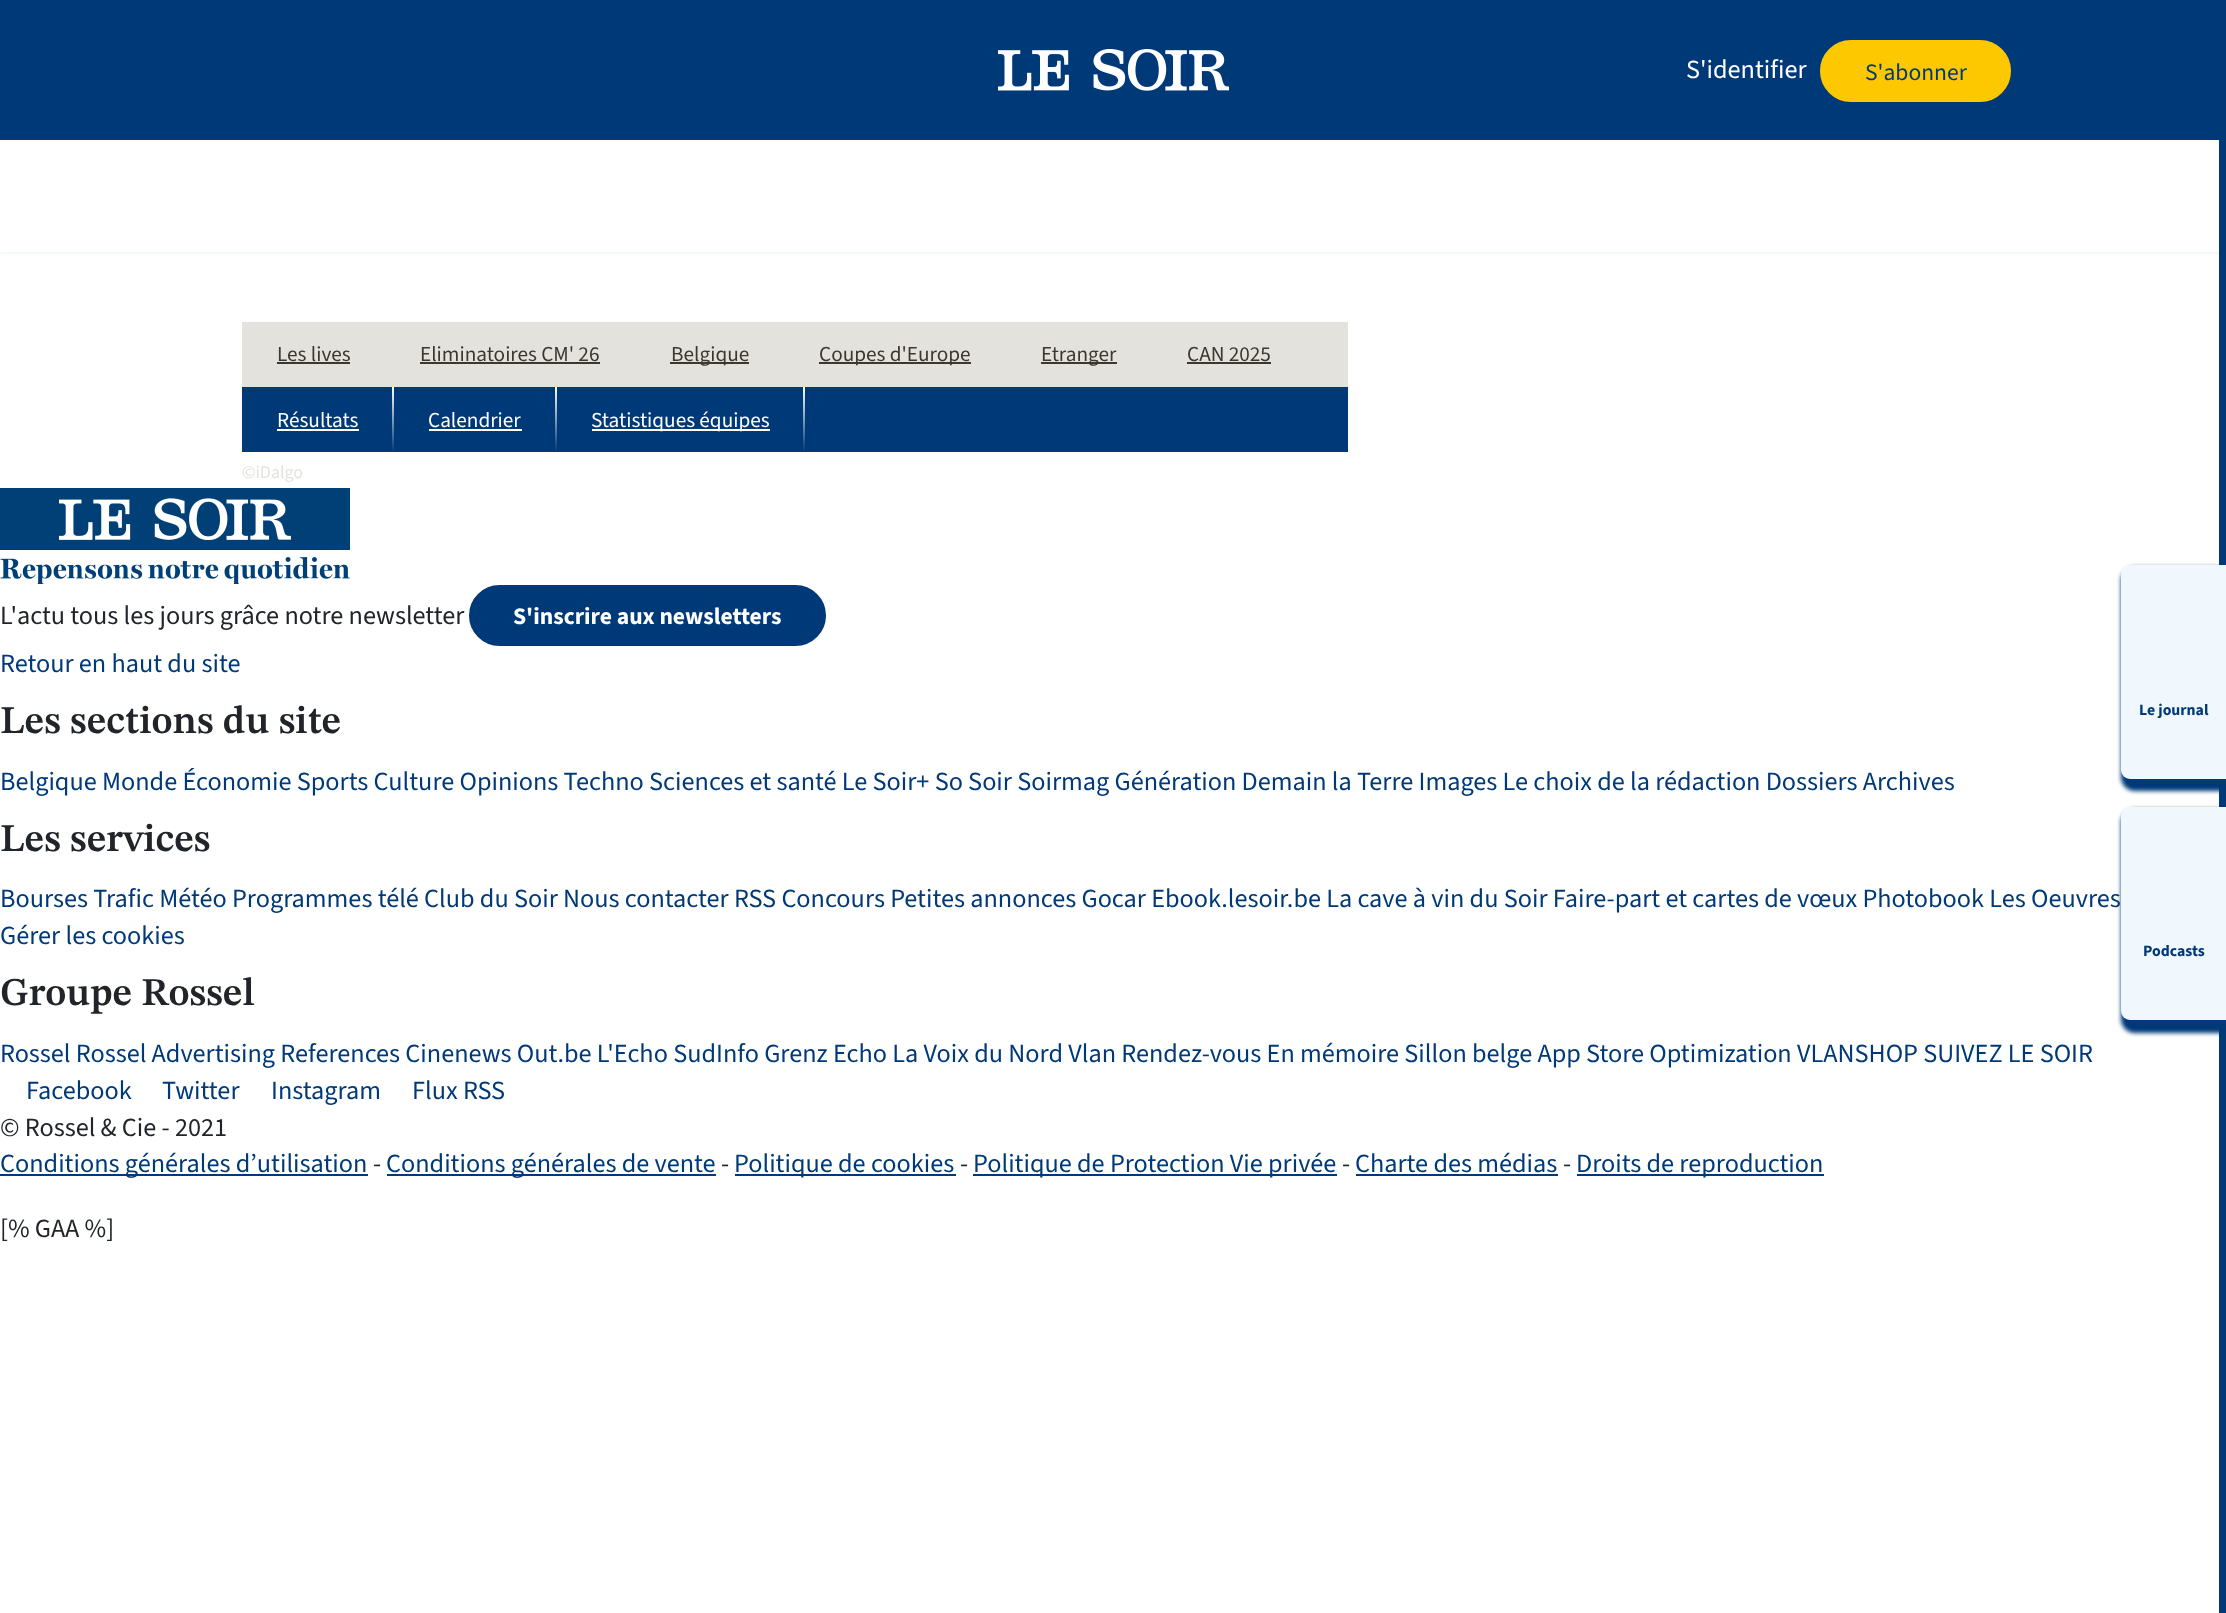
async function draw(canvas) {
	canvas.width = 2226;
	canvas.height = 1613;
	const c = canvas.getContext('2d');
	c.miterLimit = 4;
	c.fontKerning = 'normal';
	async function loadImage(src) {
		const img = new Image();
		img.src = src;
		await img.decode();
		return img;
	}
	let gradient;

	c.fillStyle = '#fff';
	c.fillRect(0, 0, 2226, 1613);
	c.fillStyle = '#e4e2dd';
	c.fillRect(242, 322, 1106, 65);
	c.font = '21.25px "Source Sans 3"';
	c.fillStyle = '#3c382f';
	c.fillText('Les lives', 277, 361);
	c.fillRect(277, 362, 73, 2);
	c.fillText('Eliminatoires CM\' 26', 420, 361);
	c.fillRect(420, 362, 180, 2);
	c.fillRect(670, 362, 79, 2);
	c.fillText('Belgique', 671, 361);
	c.fillRect(819, 362, 152, 2);
	c.fillText('Coupes d\'Europe', 819, 361);
	c.fillRect(1041, 362, 76, 2);
	c.fillText('Etranger', 1041, 361);
	c.fillText('CAN 2025', 1187, 361);
	c.fillRect(1187, 362, 84, 2);
	c.fillStyle = '#003978';
	c.fillRect(242, 387, 1106, 65);
	c.fillStyle = '#fff';
	c.fillText('Résultats', 277, 427);
	c.fillRect(277, 429, 82, 2);
	gradient = c.createLinearGradient(393, 387, 393, 452);
	gradient.addColorStop(0, '#fff');
	gradient.addColorStop(0.5, '#809cbc');
	gradient.addColorStop(1, '#003978');
	c.fillStyle = gradient;
	c.fillRect(392, 387, 2, 65);
	c.fillStyle = '#fff';
	c.fillText('Calendrier', 428, 427);
	c.fillRect(429, 429, 93, 2);
	gradient = c.createLinearGradient(556, 387, 556, 452);
	gradient.addColorStop(0, '#fff');
	gradient.addColorStop(0.5, '#809cbc');
	gradient.addColorStop(1, '#003978');
	c.fillStyle = gradient;
	c.fillRect(555, 387, 2, 65);
	c.fillStyle = '#fff';
	c.fillRect(592, 429, 178, 2);
	c.fillText('Statistiques équipes', 591, 427);
	gradient = c.createLinearGradient(804, 387, 804, 452);
	gradient.addColorStop(0, '#fff');
	gradient.addColorStop(0.5, '#809cbc');
	gradient.addColorStop(1, '#003978');
	c.fillStyle = gradient;
	c.fillRect(803, 387, 2, 65);
	c.font = '18px "Source Sans 3"';
	c.fillStyle = '#e4e2dd';
	c.fillText('©iDalgo', 242, 478);
	c.save();
	c.beginPath();
	c.rect(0, 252, 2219, 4);
	c.clip();
	c.fillStyle = '#ddeefd';
	c.filter = 'blur(2px)';
	c.beginPath();
	c.rect(0, 0, 2226, 252);
	c.fill();
	c.filter = 'none';
	c.restore();
	c.fillStyle = '#003978';
	c.fillRect(0, 0, 2219, 140);
	c.drawImage(await loadImage('img1.png'), 998, 49, 231, 42);
	c.font = '26.25px "Source Sans 3"';
	c.fillStyle = '#fff';
	c.fillText('S\'identifier', 1686, 78);
	c.fillStyle = '#fdc800';
	c.beginPath();
	c.roundRect(1821, 41, 189, 60, 30);
	c.fill();
	c.strokeStyle = '#fdc800';
	c.lineWidth = 2;
	c.stroke();
	c.font = '23.6px "Source Sans 3"';
	c.fillStyle = '#003978';
	c.fillText('S\'abonner', 1865, 80);
	c.fillRect(2219, 0, 7, 1613);
	c.filter = 'blur(2px)';
	c.beginPath();
	c.roundRect(2121, 567, 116, 224, 14);
	c.fill();
	c.filter = 'none';
	c.fillStyle = '#f0f7fd';
	c.beginPath();
	c.roundRect(2121, 565, 105, 214, [9, 0, 0, 9]);
	c.fill();
	c.font = 'bold 15.75px "Source Sans 3"';
	c.fillStyle = '#003978';
	c.fillText('Le journal', 2139, 715);
	c.filter = 'blur(2px)';
	c.beginPath();
	c.roundRect(2121, 809, 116, 224, 14);
	c.fill();
	c.filter = 'none';
	c.fillStyle = '#f0f7fd';
	c.beginPath();
	c.roundRect(2121, 807, 105, 213, [9, 0, 0, 9]);
	c.fill();
	c.fillStyle = '#003978';
	c.fillText('Podcasts', 2143, 956);
	c.drawImage(await loadImage('img2.png'), 0, 488, 350, 96);
	c.font = '26.25px "Source Sans 3"';
	c.fillStyle = '#212529';
	c.fillText('L\'actu tous les jours grâce notre newsletter', 0, 624);
	c.fillStyle = '#003978';
	c.beginPath();
	c.roundRect(470, 586, 355, 59, 29.5);
	c.fill();
	c.strokeStyle = '#003978';
	c.stroke();
	c.font = 'bold 23.6px "Source Sans 3"';
	c.fillStyle = '#fff';
	c.fillText('S\'inscrire aux newsletters', 513, 624);
	c.font = '26.25px "Source Sans 3"';
	c.fillStyle = '#003978';
	c.fillText('Retour en haut du site', 0, 672);
	c.font = '600 39.4px STIX Two Text';
	c.fillStyle = '#212529';
	c.fillText('Les sections du site', 0, 733);
	c.font = '26.25px "Source Sans 3"';
	c.fillStyle = '#003978';
	c.fillText('Belgique Monde Économie Sports Culture Opinions Techno Sciences et santé Le Soir+ So Soir Soirmag Génération Demain la Terre Images Le choix de la rédaction Dossiers Archives', 0, 790);
	c.font = '600 39.4px STIX Two Text';
	c.fillStyle = '#212529';
	c.fillText('Les services', 0, 851);
	c.font = '26.25px "Source Sans 3"';
	c.fillStyle = '#003978';
	c.fillText('Bourses Trafic Météo Programmes télé Club du Soir Nous contacter RSS Concours Petites annonces Gocar Ebook.lesoir.be La cave à vin du Soir Faire-part et cartes de vœux Photobook Les Oeuvres', 0, 907);
	c.fillText('Gérer les cookies', 0, 944);
	c.font = '600 39.4px STIX Two Text';
	c.fillStyle = '#212529';
	c.fillText('Groupe Rossel', 0, 1005);
	c.font = '26.25px "Source Sans 3"';
	c.fillStyle = '#003978';
	for (const [text, x, y] of [
		['Rossel Rossel Advertising References Cinenews Out.be L\'Echo SudInfo Grenz Echo La Voix du Nord Vlan Rendez-vous En mémoire Sillon belge App Store Optimization VLANSHOP SUIVEZ LE SOIR', 0, 1062],
		['Facebook', 26, 1099],
		['Twitter', 162, 1099],
		['Instagram', 271, 1099],
		['Flux RSS', 412, 1099],
	]) {
		c.fillText(text, x, y);
	}
	c.fillStyle = '#212529';
	c.fillText('© Rossel & Cie - 2021', 0, 1136);
	c.fillStyle = '#003978';
	c.fillRect(0, 1174, 368, 2);
	c.fillText('Conditions générales d’utilisation', 0, 1172);
	c.fillStyle = '#212529';
	c.fillText('-', 373, 1172);
	c.fillStyle = '#003978';
	c.fillRect(387, 1174, 329, 2);
	c.fillText('Conditions générales de vente', 386, 1172);
	c.fillStyle = '#212529';
	c.fillText('-', 721, 1172);
	c.fillStyle = '#003978';
	c.fillRect(735, 1174, 221, 2);
	c.fillText('Politique de cookies', 734, 1172);
	c.fillStyle = '#212529';
	c.fillText('-', 960, 1172);
	c.fillStyle = '#003978';
	c.fillRect(973, 1174, 364, 2);
	c.fillText('Politique de Protection Vie privée', 973, 1172);
	c.fillStyle = '#212529';
	c.fillText('-', 1342, 1172);
	c.fillStyle = '#003978';
	c.fillText('Charte des médias', 1355, 1172);
	c.fillRect(1356, 1174, 202, 2);
	c.fillStyle = '#212529';
	c.fillText('-', 1563, 1172);
	c.fillStyle = '#003978';
	c.fillRect(1577, 1174, 247, 2);
	c.fillText('Droits de reproduction', 1576, 1172);
	c.fillStyle = '#212529';
	c.fillText('[% GAA %]', 0, 1237);
}

draw(document.querySelector('canvas'));
